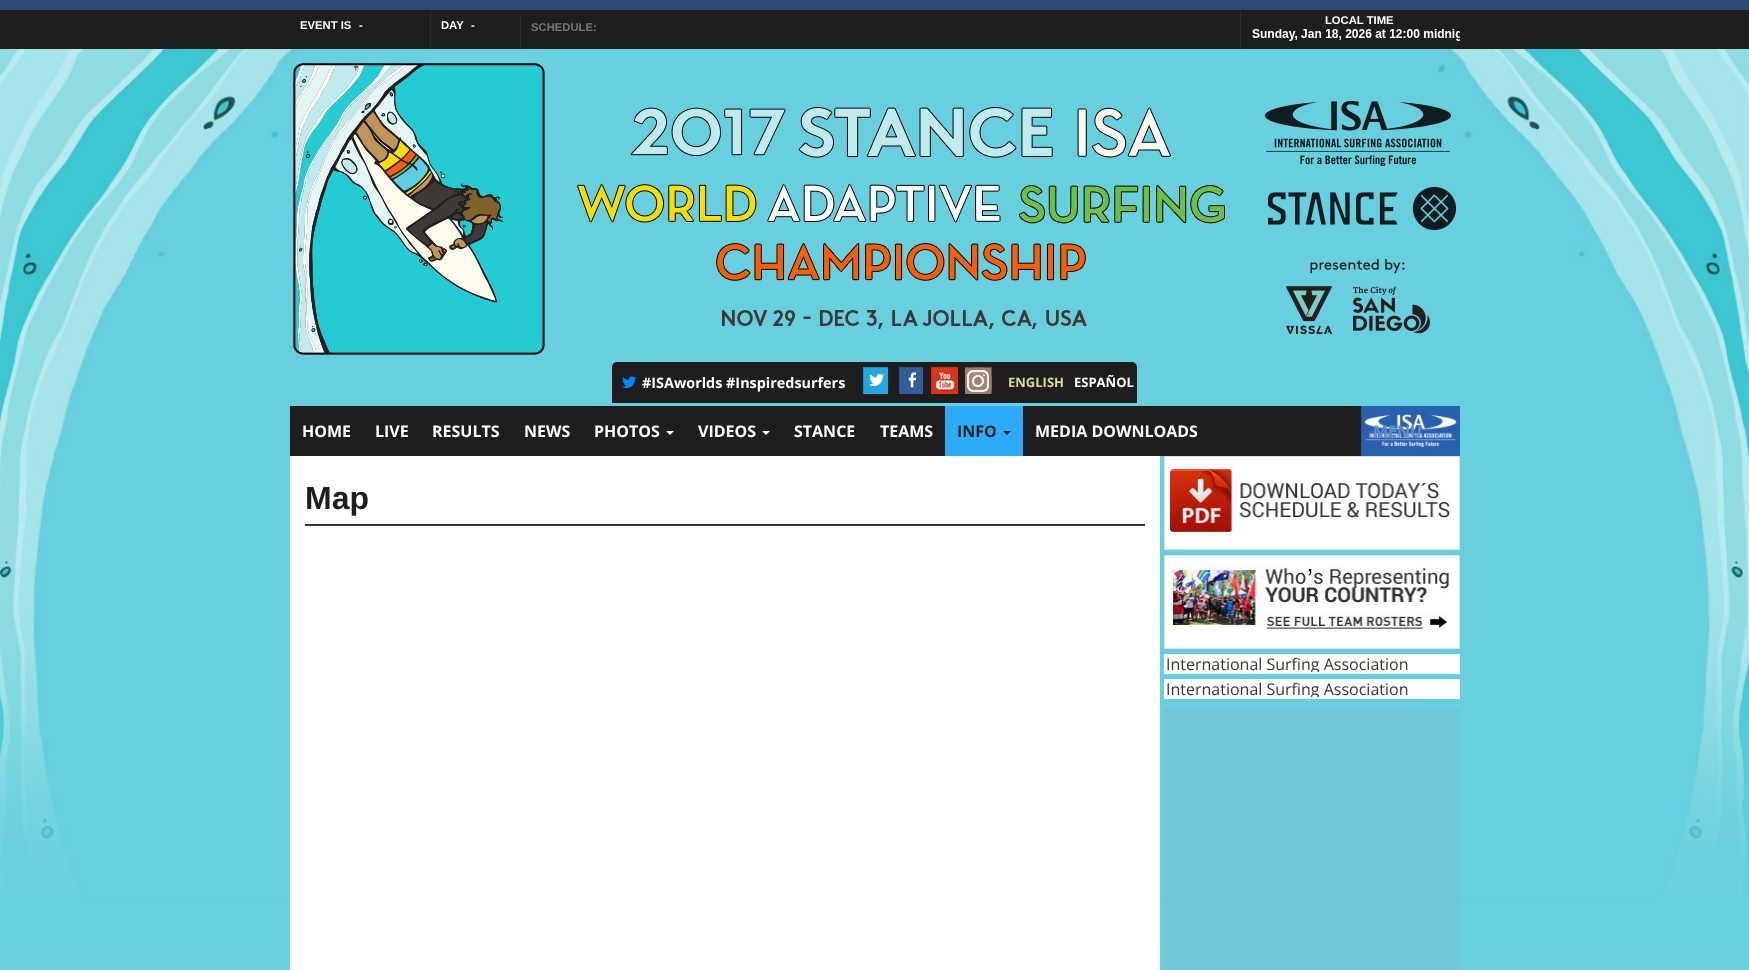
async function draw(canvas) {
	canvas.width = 1749;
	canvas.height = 970;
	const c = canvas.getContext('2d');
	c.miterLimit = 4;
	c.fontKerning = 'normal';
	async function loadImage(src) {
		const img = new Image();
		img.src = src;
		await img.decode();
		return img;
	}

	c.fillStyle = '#fff';
	c.fillRect(0, 0, 1749, 970);
	c.drawImage(await loadImage('img1.png'), 0, 49, 1749, 921);
	c.fillStyle = '#2c4b79';
	c.fillRect(0, 0, 1749, 10);
	c.fillStyle = '#1e1e1e';
	c.fillRect(0, 10, 1749, 39);
	c.font = 'bold 11.25px Liberation Sans';
	c.fillStyle = '#fff';
	c.fillText('EVENT IS', 300, 29);
	c.fillText('-', 359, 29);
	c.fillStyle = '#2d2d2d';
	c.fillRect(430, 10, 1, 39);
	c.fillStyle = '#fff';
	c.fillText('DAY', 441, 29);
	c.fillText('-', 471, 29);
	c.fillStyle = '#2d2d2d';
	c.fillRect(520, 15, 1, 34);
	c.fillStyle = '#777';
	c.fillText('SCHEDULE:', 531, 31);
	c.fillStyle = '#2d2d2d';
	c.fillRect(1240, 10, 1, 39);
	c.fillStyle = '#fff';
	c.fillText('LOCAL TIME', 1325, 24);
	c.drawImage(await loadImage('img2.png'), 1252, 29, 208, 12);
	c.drawImage(await loadImage('img3.png'), 293, 63, 1163, 292);
	c.fillStyle = '#1e1e1e';
	c.beginPath();
	c.roundRect(612, 362, 525, 41, [5, 5, 0, 0]);
	c.fill();
	c.drawImage(await loadImage('img4.png'), 622, 376, 15, 13);
	c.font = 'bold 14.4px Open Sans';
	c.fillStyle = '#fff';
	c.fillText('#ISAworlds #Inspiredsurfers', 642, 388);
	c.drawImage(await loadImage('img5.png'), 863, 367, 25, 27);
	c.drawImage(await loadImage('img6.png'), 899, 367, 24, 27);
	c.drawImage(await loadImage('img7.png'), 931, 367, 27, 27);
	c.drawImage(await loadImage('img8.png'), 965, 367, 27, 27);
	c.font = 'bold 13px Open Sans';
	c.fillStyle = '#dfd99b';
	c.fillText('ENGLISH', 1008, 387);
	c.fillStyle = '#fff';
	c.fillText('ESPAÑOL', 1074, 387);
	c.fillStyle = '#1e1e1e';
	c.fillRect(290, 406, 1072, 50);
	c.font = 'bold 16px Open Sans';
	c.fillStyle = '#fff';
	for (const [text, x, y] of [
		['HOME', 302, 437],
		['LIVE', 375, 437],
		['RESULTS', 432, 437],
		['NEWS', 524, 437],
		['PHOTOS', 594, 437],
	]) {
		c.fillText(text, x, y);
	}
	c.beginPath();
	c.moveTo(666, 431);
	c.lineTo(674, 431);
	c.lineTo(670, 435);
	c.closePath();
	c.fill();
	c.fillText('VIDEOS', 698, 437);
	c.beginPath();
	c.moveTo(762, 431);
	c.lineTo(770, 431);
	c.lineTo(766, 435);
	c.closePath();
	c.fill();
	c.fillText('STANCE', 794, 437);
	c.fillText('TEAMS', 880, 437);
	c.fillStyle = '#2dadf9';
	c.fillRect(945, 406, 78, 50);
	c.fillStyle = '#1e1e1e';
	c.fillText('INFO', 957, 437);
	c.beginPath();
	c.moveTo(1003, 431);
	c.lineTo(1011, 431);
	c.lineTo(1007, 435);
	c.closePath();
	c.fill();
	c.fillStyle = '#fff';
	c.fillText('MEDIA DOWNLOADS', 1035, 437);
	c.drawImage(await loadImage('img9.png'), 1360, 406, 100, 50);
	c.fillStyle = '#628bc3';
	c.fillText('MENU', 1373, 437);
	c.fillStyle = '#fff';
	c.fillRect(290, 456, 870, 514);
	c.fillStyle = '#353230';
	c.fillRect(305, 524, 840, 2);
	c.font = 'bold 32px Liberation Sans';
	c.fillStyle = '#1e1e1e';
	c.fillText('Map', 305, 509);
	c.fillStyle = '#fff';
	c.beginPath();
	c.rect(1164.5, 456.5, 295, 93);
	c.fill();
	c.strokeStyle = '#e2e2e2';
	c.stroke();
	c.drawImage(await loadImage('img10.png'), 1165, 465, 286, 72);
	c.beginPath();
	c.rect(1164.5, 555.5, 295, 93);
	c.fill();
	c.stroke();
	c.drawImage(await loadImage('img11.png'), 1173, 564, 278, 66);
	c.fillRect(1164, 654, 296, 20);
	c.save();
	c.beginPath();
	c.rect(1166, 656, 292, 16);
	c.clip();
	c.font = '16px Open Sans';
	c.fillStyle = '#3f3627';
	c.fillText('International Surfing Association', 1166, 670);
	c.restore();
	c.fillRect(1164, 679, 296, 20);
	c.save();
	c.beginPath();
	c.rect(1166, 681, 292, 16);
	c.clip();
	c.font = '16px Open Sans';
	c.fillStyle = '#3f3627';
	c.fillText('International Surfing Association', 1166, 695);
	c.restore();
	c.fillStyle = '#9193961f';
	c.fillRect(1164, 709, 296, 261);
}

draw(document.querySelector('canvas'));
